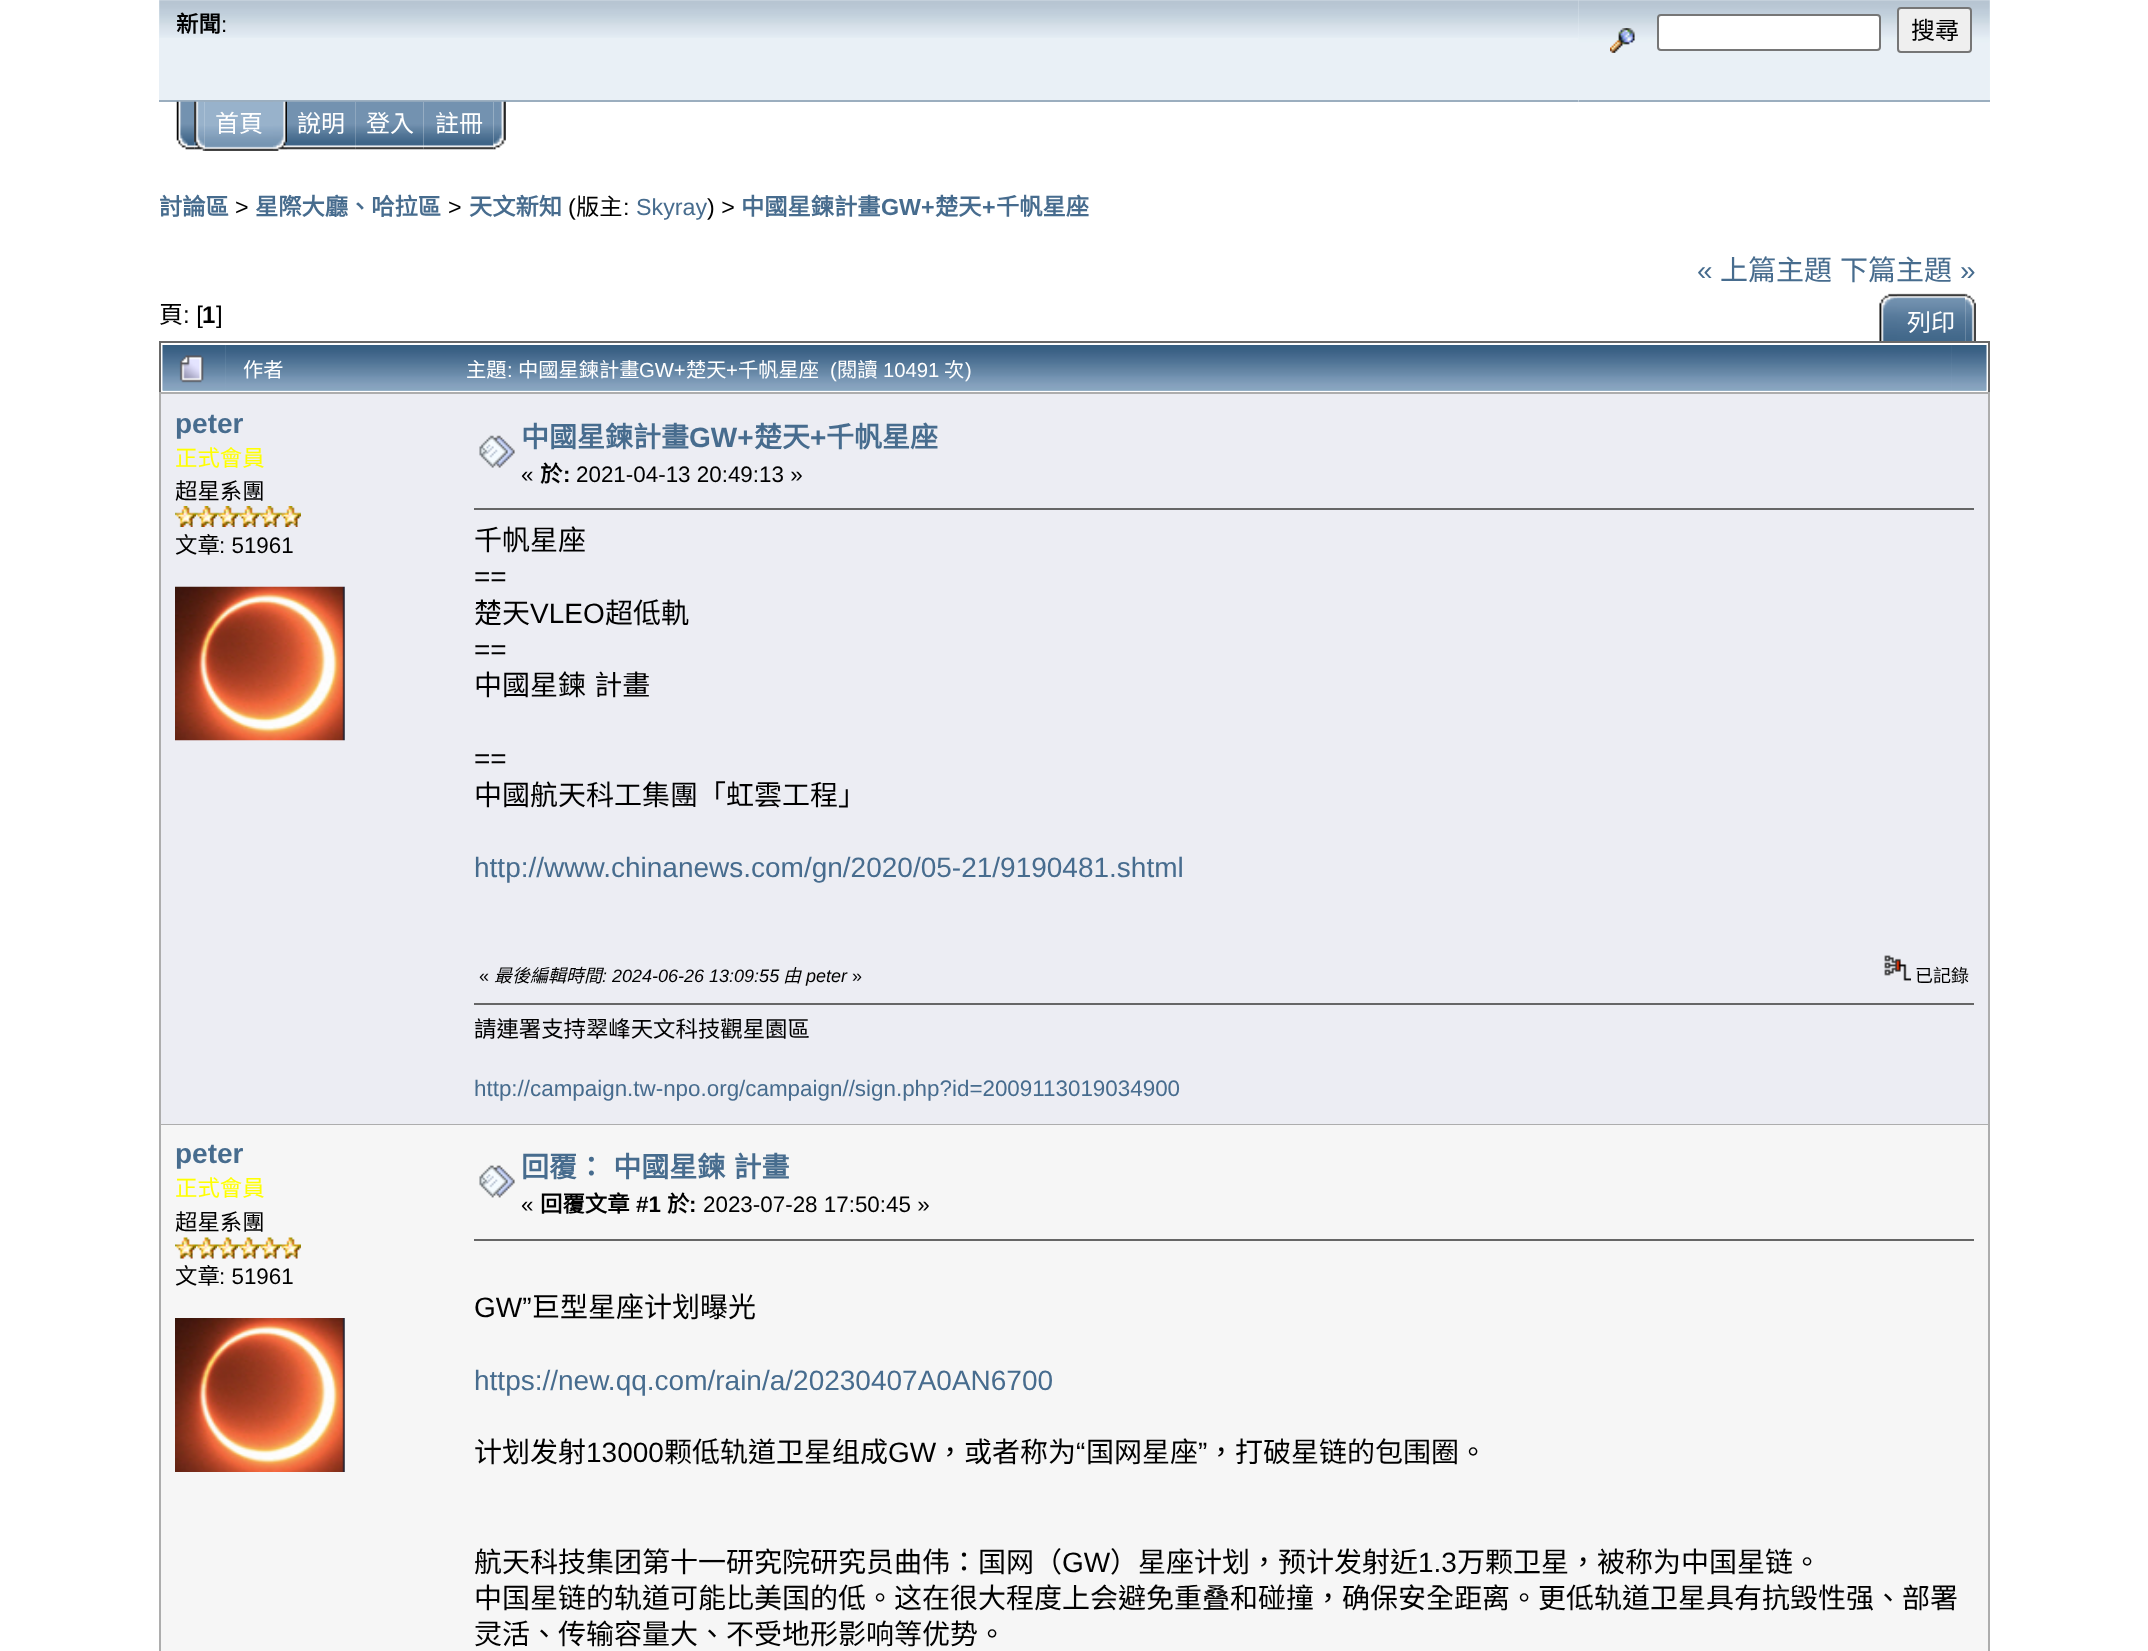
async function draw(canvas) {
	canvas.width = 2148;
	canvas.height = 1651;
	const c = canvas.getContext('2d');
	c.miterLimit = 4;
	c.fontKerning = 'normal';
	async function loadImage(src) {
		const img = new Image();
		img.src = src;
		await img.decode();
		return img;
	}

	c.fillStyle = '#fff';
	c.fillRect(0, 0, 2148, 1651);
	c.fillStyle = '#e9f0f6';
	c.fillRect(159, 0, 1831, 100);
	c.drawImage(await loadImage('img1.png'), 159, 0, 1420, 38);
	c.fillStyle = '#9baebf';
	c.fillRect(159, 100, 1420, 2);
	c.font = 'bold 22.4px Noto Sans CJK TC';
	c.fillStyle = '#000';
	c.fillText('新聞', 176, 32);
	c.font = '22.4px Liberation Sans';
	c.fillText(':', 221, 32);
	c.drawImage(await loadImage('img2.png'), 1578, 0, 412, 102);
	c.fillStyle = '#9baebf';
	c.fillRect(1579, 100, 411, 2);
	c.drawImage(await loadImage('img3.png'), 1610, 28, 25, 25);
	c.fillStyle = '#fff';
	c.beginPath();
	c.roundRect(1658, 15, 222, 35, 3);
	c.fill();
	c.strokeStyle = '#767676';
	c.lineWidth = 2;
	c.stroke();
	c.fillStyle = '#efefef';
	c.beginPath();
	c.roundRect(1898, 8, 73, 44, 3);
	c.fill();
	c.stroke();
	c.font = '24px Noto Sans CJK TC';
	c.fillStyle = '#000';
	c.fillText('搜尋', 1911, 39);
	c.drawImage(await loadImage('img4.png'), 176, 101, 19, 49);
	c.drawImage(await loadImage('img5.png'), 194, 101, 11, 50);
	c.drawImage(await loadImage('img6.png'), 204, 102, 69, 49);
	c.fillStyle = '#fff';
	c.fillText('首頁', 215, 132);
	c.drawImage(await loadImage('img7.png'), 273, 101, 14, 50);
	c.drawImage(await loadImage('img8.png'), 287, 101, 69, 49);
	c.fillText('說明', 297, 132);
	c.drawImage(await loadImage('img9.png'), 355, 101, 69, 49);
	c.fillText('登入', 366, 132);
	c.drawImage(await loadImage('img10.png'), 423, 101, 71, 49);
	c.fillText('註冊', 435, 132);
	c.drawImage(await loadImage('img11.png'), 493, 101, 13, 49);
	c.font = 'bold 23.25px Noto Sans CJK TC';
	c.fillStyle = '#476c8e';
	c.fillText('討論區', 159, 215);
	c.font = '23.25px Liberation Sans';
	c.fillStyle = '#000';
	c.fillText('>', 235, 215);
	c.font = 'bold 23.25px Noto Sans CJK TC';
	c.fillStyle = '#476c8e';
	c.fillText('星際大廳、哈拉區', 255, 215);
	c.font = '23.25px Liberation Sans';
	c.fillStyle = '#000';
	c.fillText('>', 448, 215);
	c.font = 'bold 23.25px Noto Sans CJK TC';
	c.fillStyle = '#476c8e';
	c.fillText('天文新知', 469, 215);
	c.font = '23.25px Liberation Sans';
	c.fillStyle = '#000';
	c.fillText('(', 568, 215);
	c.font = '23.25px Noto Sans CJK TC';
	c.fillText('版主', 576, 215);
	c.font = '23.25px Liberation Sans';
	c.fillText(':', 623, 215);
	c.fillStyle = '#476c8e';
	c.fillText('Skyray', 636, 215);
	c.fillStyle = '#000';
	c.fillText(') >', 707, 215);
	c.font = 'bold 23.25px Noto Sans CJK TC';
	c.fillStyle = '#476c8e';
	c.fillText('中國星鍊計畫', 741, 215);
	c.font = 'bold 23.25px Liberation Sans';
	c.fillText('GW+', 881, 215);
	c.font = 'bold 23.25px Noto Sans CJK TC';
	c.fillText('楚天', 935, 215);
	c.font = 'bold 23.25px Liberation Sans';
	c.fillText('+', 982, 215);
	c.font = 'bold 23.25px Noto Sans CJK TC';
	c.fillText('千帆星座', 996, 215);
	c.font = '24px Noto Sans CJK TC';
	c.fillStyle = '#000';
	c.fillText('頁', 159, 323);
	c.font = '24px Liberation Sans';
	c.fillText(': [', 183, 323);
	c.font = 'bold 24px Liberation Sans';
	c.fillText('1', 202, 323);
	c.font = '24px Liberation Sans';
	c.fillText(']', 216, 323);
	c.font = '28px Liberation Sans';
	c.fillStyle = '#476c8e';
	c.fillText('«', 1697, 280);
	c.font = '28px Noto Sans CJK TC';
	c.fillText('上篇主題', 1720, 280);
	c.fillText('下篇主題', 1840, 280);
	c.font = '28px Liberation Sans';
	c.fillText('»', 1960, 280);
	c.drawImage(await loadImage('img12.png'), 1879, 293, 18, 48);
	c.drawImage(await loadImage('img13.png'), 1897, 293, 69, 48);
	c.font = '24px Noto Sans CJK TC';
	c.fillStyle = '#fff';
	c.fillText('列印', 1907, 331);
	c.drawImage(await loadImage('img14.png'), 1965, 293, 11, 48);
	for (const [x, y, w, h, color] of [
		[159, 341, 1831, 2, '#696969'],
		[1988, 341, 2, 51, '#696969'],
		[159, 341, 2, 51, '#696969'],
	]) {
		c.fillStyle = color;
		c.fillRect(x, y, w, h);
	}
	c.drawImage(await loadImage('img15.png'), 162, 345, 64, 46);
	c.drawImage(await loadImage('img16.png'), 179, 355, 25, 28);
	c.drawImage(await loadImage('img17.png'), 225, 345, 230, 46);
	c.font = '20.25px Noto Sans CJK TC';
	c.fillStyle = '#fff';
	c.fillText('作者', 243, 377);
	c.drawImage(await loadImage('img18.png'), 455, 345, 1497, 46);
	c.fillText('主題', 466, 377);
	c.font = '20.25px Liberation Sans';
	c.fillText(':', 507, 377);
	c.font = '20.25px Noto Sans CJK TC';
	c.fillText('中國星鍊計畫', 518, 377);
	c.font = '20.25px Liberation Sans';
	c.fillText('GW+', 639, 377);
	c.font = '20.25px Noto Sans CJK TC';
	c.fillText('楚天', 686, 377);
	c.font = '20.25px Liberation Sans';
	c.fillText('+', 726, 377);
	c.font = '20.25px Noto Sans CJK TC';
	c.fillText('千帆星座', 738, 377);
	c.font = '20.25px Liberation Sans';
	c.fillText('(', 830, 377);
	c.font = '20.25px Noto Sans CJK TC';
	c.fillText('閱讀', 837, 377);
	c.font = '20.25px Liberation Sans';
	c.fillText('10491', 883, 377);
	c.font = '20.25px Noto Sans CJK TC';
	c.fillText('次', 944, 377);
	c.font = '20.25px Liberation Sans';
	c.fillText(')', 965, 377);
	c.drawImage(await loadImage('img19.png'), 1951, 345, 36, 46);
	c.fillStyle = '#adadad';
	c.fillRect(159, 392, 1831, 1259);
	c.fillStyle = '#ecedf3';
	c.fillRect(161, 394, 1827, 730);
	c.font = 'bold 28px Liberation Sans';
	c.fillStyle = '#476c8e';
	c.fillText('peter', 175, 433);
	c.font = '22.4px Noto Sans CJK TC';
	c.fillStyle = '#ff0';
	c.fillText('正式會員', 175, 466);
	c.fillStyle = '#000';
	c.fillText('超星系團', 175, 499);
	c.drawImage(await loadImage('img20.png'), 175, 506, 21, 21);
	c.drawImage(await loadImage('img20.png'), 196, 506, 21, 21);
	c.drawImage(await loadImage('img20.png'), 217, 506, 21, 21);
	c.drawImage(await loadImage('img21.png'), 238, 506, 21, 21);
	c.drawImage(await loadImage('img21.png'), 259, 506, 21, 21);
	c.drawImage(await loadImage('img22.png'), 280, 506, 21, 21);
	c.fillText('文章', 175, 553);
	c.font = '22.4px Liberation Sans';
	c.fillText(': 51961', 219, 553);
	c.drawImage(await loadImage('img23.png'), 175, 586, 170, 155);
	c.drawImage(await loadImage('img24.png'), 479, 435, 36, 33);
	c.font = 'bold 28px Noto Sans CJK TC';
	c.fillStyle = '#476c8e';
	c.fillText('中國星鍊計畫', 521, 447);
	c.font = 'bold 28px Liberation Sans';
	c.fillText('GW+', 689, 447);
	c.font = 'bold 28px Noto Sans CJK TC';
	c.fillText('楚天', 754, 447);
	c.font = 'bold 28px Liberation Sans';
	c.fillText('+', 810, 447);
	c.font = 'bold 28px Noto Sans CJK TC';
	c.fillText('千帆星座', 826, 447);
	c.font = '22.4px Liberation Sans';
	c.fillStyle = '#000';
	c.fillText('«', 521, 482);
	c.font = 'bold 22.4px Noto Sans CJK TC';
	c.fillText('於', 540, 482);
	c.font = 'bold 22.4px Liberation Sans';
	c.fillText(':', 563, 482);
	c.font = '22.4px Liberation Sans';
	c.fillText('2021-04-13 20:49:13 »', 576, 482);
	c.fillStyle = '#666';
	c.fillRect(474, 508, 1500, 2);
	c.font = '28px Noto Sans CJK TC';
	c.fillStyle = '#000';
	c.fillText('千帆星座', 474, 550);
	c.font = '28px Liberation Sans';
	c.fillText('==', 474, 586);
	c.font = '28px Noto Sans CJK TC';
	c.fillText('楚天', 474, 623);
	c.font = '28px Liberation Sans';
	c.fillText('VLEO', 530, 623);
	c.font = '28px Noto Sans CJK TC';
	c.fillText('超低軌', 605, 623);
	c.font = '28px Liberation Sans';
	c.fillText('==', 474, 659);
	c.wordSpacing = '2px';
	c.font = '28px Noto Sans CJK TC';
	c.fillText('中國星鍊 計畫', 474, 695);
	c.wordSpacing = '0px';
	c.font = '28px Liberation Sans';
	c.fillText('==', 474, 768);
	c.font = '28px Noto Sans CJK TC';
	c.fillText('中國航天科工集團「虹雲工程」', 474, 805);
	c.font = '28px Liberation Sans';
	c.fillStyle = '#476c8e';
	c.fillText('http://www.chinanews.com/gn/2020/05-21/9190481.shtml', 474, 877);
	c.font = '18px Liberation Sans';
	c.fillStyle = '#000';
	c.fillText('«', 479, 982);
	c.font = 'italic 18px Noto Sans CJK TC';
	c.fillText('最後編輯時間', 494, 982);
	c.font = 'italic 18px Liberation Sans';
	c.fillText(': 2024-06-26 13:09:55', 602, 982);
	c.font = 'italic 18px Noto Sans CJK TC';
	c.fillText('由', 783, 982);
	c.font = 'italic 18px Liberation Sans';
	c.fillText('peter', 806, 982);
	c.font = '18px Liberation Sans';
	c.fillText('»', 852, 982);
	c.drawImage(await loadImage('img25.png'), 1884, 955, 27, 26);
	c.font = '18px Noto Sans CJK TC';
	c.fillText('已記錄', 1915, 982);
	c.fillStyle = '#666';
	c.fillRect(474, 1003, 1500, 2);
	c.font = '22.4px Noto Sans CJK TC';
	c.fillStyle = '#000';
	c.fillText('請連署支持翠峰天文科技觀星園區', 474, 1037);
	c.font = '22.4px Liberation Sans';
	c.fillStyle = '#476c8e';
	c.fillText('http://campaign.tw-npo.org/campaign//sign.php?id=2009113019034900', 474, 1096);
	c.fillStyle = '#f6f6f6';
	c.fillRect(161, 1125, 1827, 526);
	c.font = 'bold 28px Liberation Sans';
	c.fillStyle = '#476c8e';
	c.fillText('peter', 175, 1163);
	c.font = '22.4px Noto Sans CJK TC';
	c.fillStyle = '#ff0';
	c.fillText('正式會員', 175, 1196);
	c.fillStyle = '#000';
	c.fillText('超星系團', 175, 1230);
	c.drawImage(await loadImage('img26.png'), 175, 1237, 21, 22);
	c.drawImage(await loadImage('img26.png'), 196, 1237, 21, 22);
	c.drawImage(await loadImage('img26.png'), 217, 1237, 21, 22);
	c.drawImage(await loadImage('img27.png'), 238, 1237, 21, 22);
	c.drawImage(await loadImage('img27.png'), 259, 1237, 21, 22);
	c.drawImage(await loadImage('img28.png'), 280, 1237, 21, 22);
	c.fillText('文章', 175, 1284);
	c.font = '22.4px Liberation Sans';
	c.fillText(': 51961', 219, 1284);
	c.drawImage(await loadImage('img29.png'), 175, 1318, 170, 154);
	c.drawImage(await loadImage('img30.png'), 479, 1165, 36, 33);
	c.wordSpacing = '2px';
	c.font = 'bold 28px Noto Sans CJK TC';
	c.fillStyle = '#476c8e';
	c.fillText('回覆： 中國星鍊 計畫', 521, 1177);
	c.wordSpacing = '0px';
	c.font = '22.4px Liberation Sans';
	c.fillStyle = '#000';
	c.fillText('«', 521, 1212);
	c.font = 'bold 22.4px Noto Sans CJK TC';
	c.fillText('回覆文章', 540, 1212);
	c.font = 'bold 22.4px Liberation Sans';
	c.fillText('#1', 636, 1212);
	c.font = 'bold 22.4px Noto Sans CJK TC';
	c.fillText('於', 667, 1212);
	c.font = 'bold 22.4px Liberation Sans';
	c.fillText(':', 689, 1212);
	c.font = '22.4px Liberation Sans';
	c.fillText('2023-07-28 17:50:45 »', 703, 1212);
	c.fillStyle = '#666';
	c.fillRect(474, 1239, 1500, 2);
	c.font = '28px Liberation Sans';
	c.fillStyle = '#000';
	c.fillText('GW”', 474, 1317);
	c.font = '28px Noto Sans CJK TC';
	c.fillText('巨型星座计划曝光', 532, 1317);
	c.font = '28px Liberation Sans';
	c.fillStyle = '#476c8e';
	c.fillText('https://new.qq.com/rain/a/20230407A0AN6700', 474, 1390);
	c.font = '28px Noto Sans CJK TC';
	c.fillStyle = '#000';
	c.fillText('计划发射', 474, 1462);
	c.font = '28px Liberation Sans';
	c.fillText('13000', 586, 1462);
	c.font = '28px Noto Sans CJK TC';
	c.fillText('颗低轨道卫星组成', 664, 1462);
	c.font = '28px Liberation Sans';
	c.fillText('GW', 888, 1462);
	c.font = '28px Noto Sans CJK TC';
	c.fillText('，或者称为', 936, 1462);
	c.font = '28px Liberation Sans';
	c.fillText('“', 1076, 1462);
	c.font = '28px Noto Sans CJK TC';
	c.fillText('国网星座', 1086, 1462);
	c.font = '28px Liberation Sans';
	c.fillText('”', 1198, 1462);
	c.font = '28px Noto Sans CJK TC';
	c.fillText('，打破星链的包围圈。', 1207, 1462);
	c.fillText('航天科技集团第十一研究院研究员曲伟：国网（', 474, 1572);
	c.font = '28px Liberation Sans';
	c.fillText('GW', 1062, 1572);
	c.font = '28px Noto Sans CJK TC';
	c.fillText('）星座计划，预计发射近', 1110, 1572);
	c.font = '28px Liberation Sans';
	c.fillText('1.3', 1418, 1572);
	c.font = '28px Noto Sans CJK TC';
	for (const [text, x, y] of [
		['万颗卫星，被称为中国星链。', 1457, 1572],
		['中国星链的轨道可能比美国的低。这在很大程度上会避免重叠和碰撞，确保安全距离。更低轨道卫星具有抗毁性强、部署', 474, 1608],
		['灵活、传输容量大、不受地形影响等优势。', 474, 1644],
	]) {
		c.fillText(text, x, y);
	}
}

draw(document.querySelector('canvas'));
